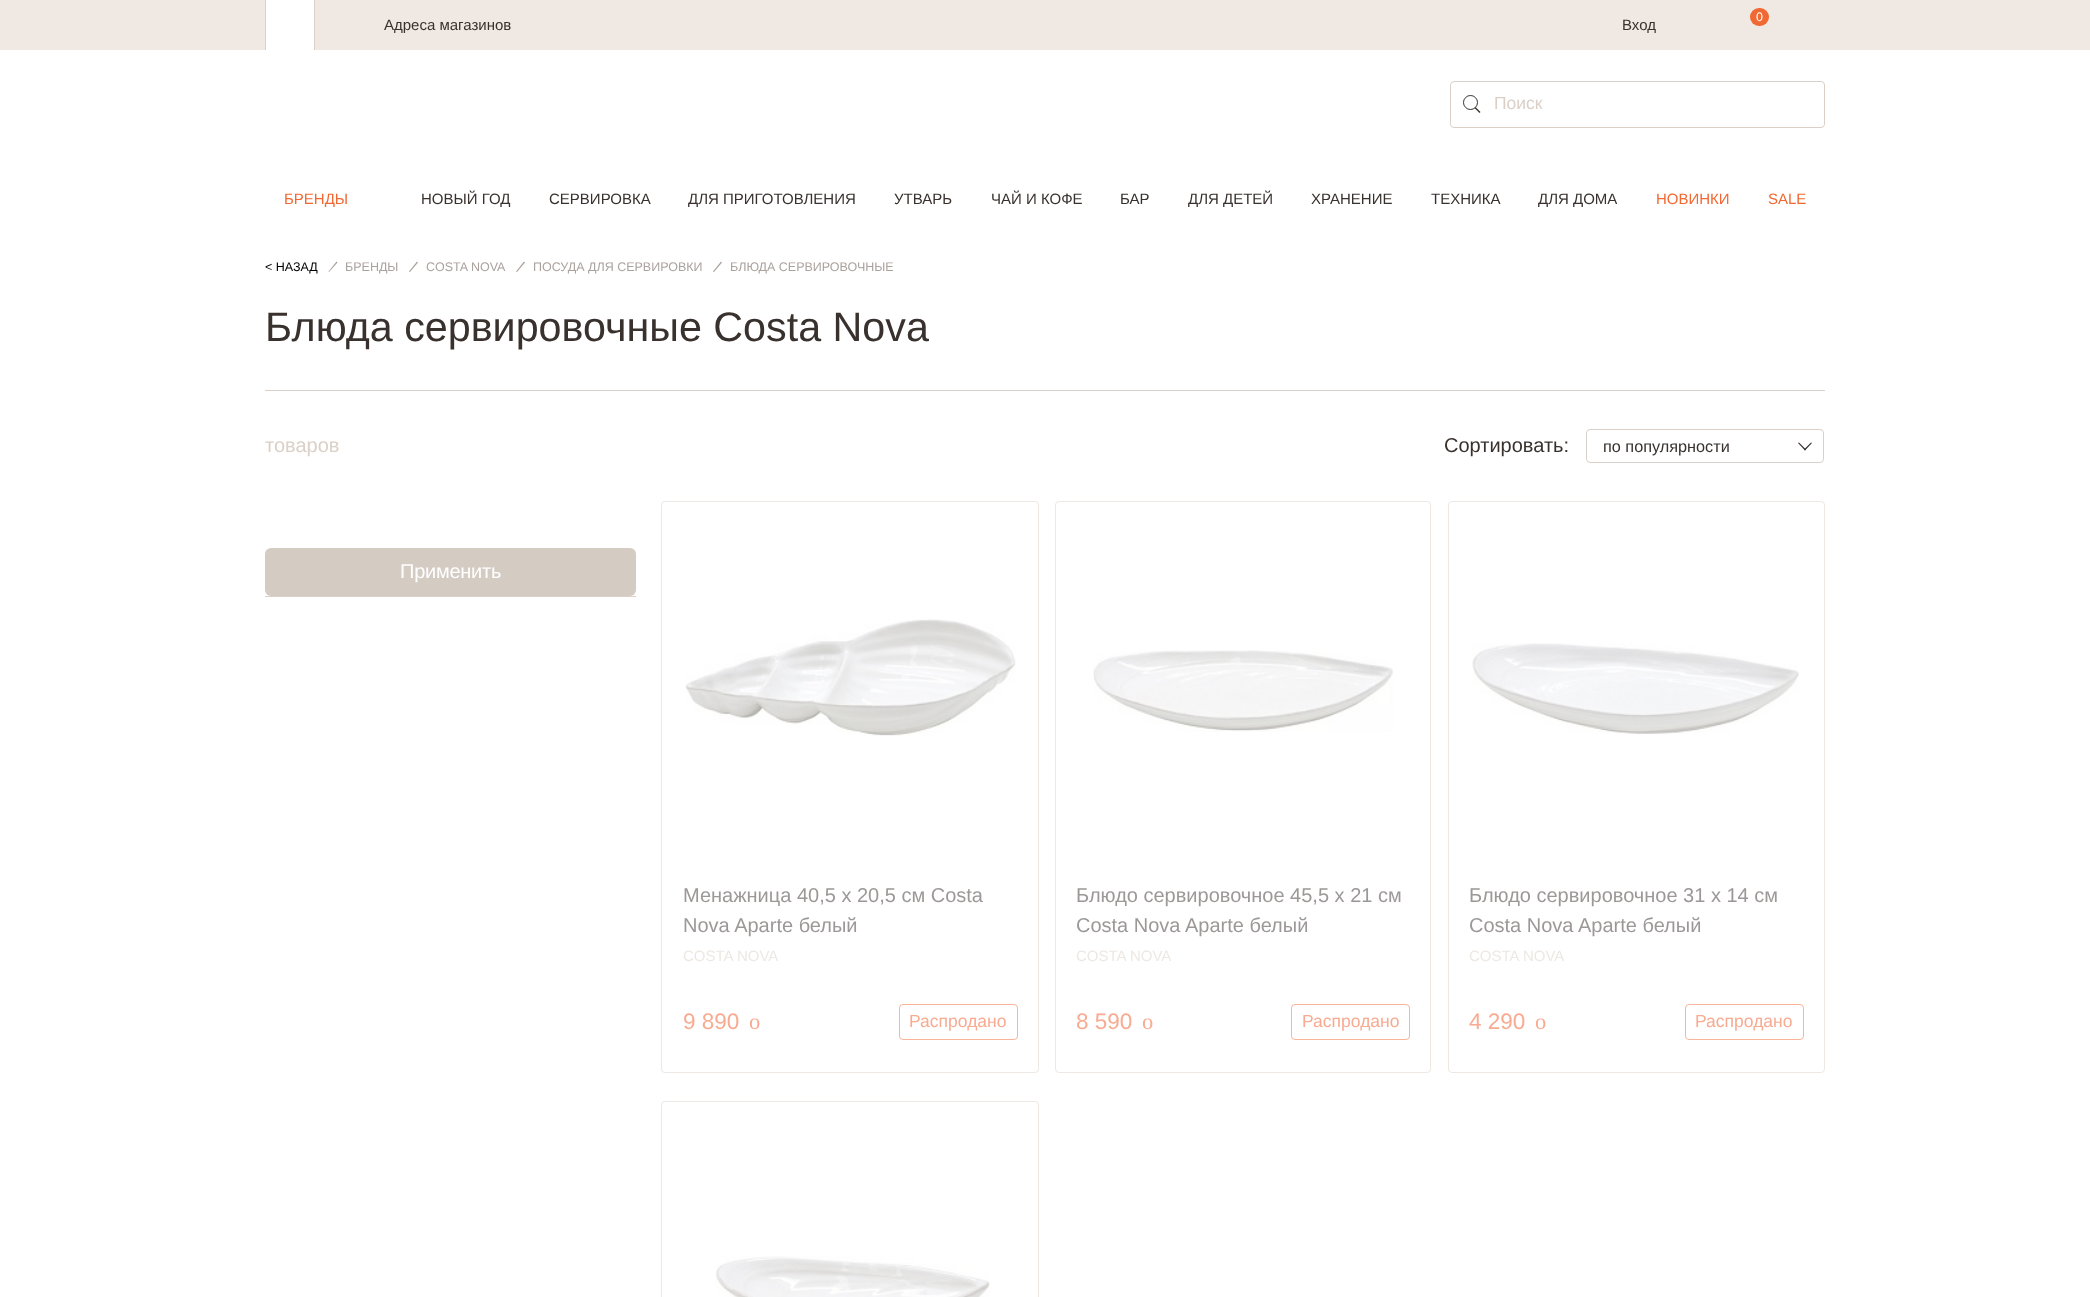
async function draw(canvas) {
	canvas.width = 2090;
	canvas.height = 1297;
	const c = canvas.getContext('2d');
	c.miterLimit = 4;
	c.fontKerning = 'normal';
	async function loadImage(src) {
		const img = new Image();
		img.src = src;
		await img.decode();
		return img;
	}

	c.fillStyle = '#fff';
	c.fillRect(0, 0, 2090, 1297);
	for (const [x, y, w, h, color] of [
		[0, 0, 2090, 50, '#efe8e3'],
		[266, 0, 48, 50, '#fff'],
		[314, 0, 1, 50, '#dad0c7'],
		[265, 0, 1, 50, '#dad0c7'],
	]) {
		c.fillStyle = color;
		c.fillRect(x, y, w, h);
	}
	c.fillStyle = '#f26832';
	c.beginPath();
	c.roundRect(1750, 8, 19, 18, 9);
	c.fill();
	c.font = '12.5px Liberation Sans';
	c.fillStyle = '#fff';
	c.fillText('0', 1756, 21);
	c.font = '15px Liberation Sans';
	c.fillStyle = '#38312e';
	c.fillText('Адреса магазинов', 384, 30);
	c.fillText('Вход', 1622, 30);
	c.beginPath();
	c.roundRect(1450.5, 81.5, 374, 46, 3.5);
	c.strokeStyle = '#dad0c7';
	c.stroke();
	c.beginPath();
	c.moveTo(1475.5, 107);
	c.lineTo(1480.5, 112);
	c.lineTo(1479.5, 113);
	c.lineTo(1474.5, 108);
	c.closePath();
	c.fill();
	c.beginPath();
	c.arc(1470.5, 102.5, 7, 0, 2 * Math.PI);
	c.strokeStyle = '#38312e';
	c.stroke();
	c.font = '17.5px Liberation Sans';
	c.fillStyle = '#dad0c7';
	c.fillText('Поиск', 1494, 109);
	c.font = '15px Liberation Sans';
	c.fillStyle = '#f26832';
	c.fillText('БРЕНДЫ', 284, 204);
	c.fillStyle = '#38312e';
	for (const [text, x, y] of [
		['НОВЫЙ ГОД', 421, 204],
		['СЕРВИРОВКА', 549, 204],
		['ДЛЯ ПРИГОТОВЛЕНИЯ', 688, 204],
		['УТВАРЬ', 894, 204],
		['ЧАЙ И КОФЕ', 991, 204],
		['БАР', 1120, 204],
		['ДЛЯ ДЕТЕЙ', 1188, 204],
		['ХРАНЕНИЕ', 1311, 204],
		['ТЕХНИКА', 1431, 204],
		['ДЛЯ ДОМА', 1538, 204],
	]) {
		c.fillText(text, x, y);
	}
	c.fillStyle = '#f26832';
	c.fillText('НОВИНКИ', 1656, 204);
	c.fillText('SALE', 1768, 204);
	c.font = '12.5px Liberation Sans';
	c.fillStyle = '#000';
	c.fillText('< НАЗАД', 265, 271);
	c.fillStyle = '#aba29d';
	c.beginPath();
	c.moveTo(328.5, 271.5);
	c.lineTo(336.5, 261.5);
	c.lineTo(337.5, 262.5);
	c.lineTo(329, 272);
	c.closePath();
	c.fill();
	c.fillText('БРЕНДЫ', 345, 271);
	c.beginPath();
	c.moveTo(409, 271.5);
	c.lineTo(417, 261.5);
	c.lineTo(418, 262.5);
	c.lineTo(410, 272);
	c.closePath();
	c.fill();
	c.fillText('COSTA NOVA', 426, 271);
	c.beginPath();
	c.moveTo(516, 271.5);
	c.lineTo(524, 261.5);
	c.lineTo(525, 262.5);
	c.lineTo(517, 272);
	c.closePath();
	c.fill();
	c.fillText('ПОСУДА ДЛЯ СЕРВИРОВКИ', 533, 271);
	c.beginPath();
	c.moveTo(713, 271.5);
	c.lineTo(721, 261.5);
	c.lineTo(722, 262.5);
	c.lineTo(714, 272);
	c.closePath();
	c.fill();
	c.fillText('БЛЮДА СЕРВИРОВОЧНЫЕ', 730, 271);
	c.font = '41.25px Liberation Sans';
	c.fillStyle = '#38312e';
	c.fillText('Блюда сервировочные Costa Nova', 265, 341);
	c.fillStyle = '#dad0c7';
	c.fillRect(265, 390, 1560, 1);
	c.font = '20px Liberation Sans';
	c.fillText('товаров', 265, 452);
	c.fillStyle = '#38312e';
	c.fillText('Сортировать:', 1444, 452);
	c.beginPath();
	c.roundRect(1586.5, 429.5, 237, 33, 3.5);
	c.strokeStyle = '#dad0c7';
	c.stroke();
	c.font = '16.25px Liberation Sans';
	c.fillText('по популярности', 1603, 452);
	c.beginPath();
	c.moveTo(1804, 449.5);
	c.lineTo(1811, 442.5);
	c.lineTo(1812, 443);
	c.lineTo(1805, 450.5);
	c.closePath();
	c.fill();
	c.beginPath();
	c.moveTo(1798, 443);
	c.lineTo(1799, 442.5);
	c.lineTo(1806, 449.5);
	c.lineTo(1805, 450.5);
	c.closePath();
	c.fill();
	c.fillStyle = '#dad0c7';
	c.fillRect(265, 596, 371, 1);
	c.fillStyle = '#d4cbc3';
	c.beginPath();
	c.roundRect(265, 548, 371, 48, 6);
	c.fill();
	c.letterSpacing = '-0.25px';
	c.font = '20px Liberation Sans';
	c.fillStyle = '#fff';
	c.fillText('Применить', 400, 578);
	c.beginPath();
	c.roundRect(661.5, 501.5, 377, 571, 3.5);
	c.strokeStyle = '#ede8e3';
	c.stroke();
	c.drawImage(await loadImage('img1.png'), 685, 619, 331, 117);
	c.letterSpacing = '0px';
	c.fillStyle = '#9c9897';
	c.fillText('Менажница 40,5 х 20,5 см Costa', 683, 902);
	c.fillText('Nova Aparte белый', 683, 932);
	c.font = '15px Liberation Sans';
	c.fillStyle = '#ede8e3';
	c.fillText('COSTA NOVA', 683, 961);
	c.font = '22.5px Liberation Sans';
	c.fillStyle = '#f8ab91';
	c.fillText('9 890', 683, 1029);
	c.font = '22.5px Liberation Serif';
	c.fillText('o', 749, 1029);
	c.beginPath();
	c.roundRect(899.5, 1004.5, 118, 35, 3.5);
	c.strokeStyle = '#f9b499';
	c.stroke();
	c.font = '17.5px Liberation Sans';
	c.fillText('Распродано', 909, 1027);
	c.beginPath();
	c.roundRect(1055.5, 501.5, 375, 571, 3.5);
	c.strokeStyle = '#ede8e3';
	c.stroke();
	c.drawImage(await loadImage('img2.png'), 1093, 650, 300, 82);
	c.font = '20px Liberation Sans';
	c.fillStyle = '#9c9897';
	c.fillText('Блюдо сервировочное 45,5 х 21 см', 1076, 902);
	c.fillText('Costa Nova Aparte белый', 1076, 932);
	c.font = '15px Liberation Sans';
	c.fillStyle = '#ede8e3';
	c.fillText('COSTA NOVA', 1076, 961);
	c.font = '22.5px Liberation Sans';
	c.fillStyle = '#f8ab91';
	c.fillText('8 590', 1076, 1029);
	c.font = '22.5px Liberation Serif';
	c.fillText('o', 1142, 1029);
	c.beginPath();
	c.roundRect(1291.5, 1004.5, 118, 35, 3.5);
	c.strokeStyle = '#f9b499';
	c.stroke();
	c.font = '17.5px Liberation Sans';
	c.fillText('Распродано', 1302, 1027);
	c.beginPath();
	c.roundRect(1448.5, 501.5, 376, 571, 3.5);
	c.strokeStyle = '#ede8e3';
	c.stroke();
	c.drawImage(await loadImage('img3.png'), 1472, 643, 327, 91);
	c.font = '20px Liberation Sans';
	c.fillStyle = '#9c9897';
	c.fillText('Блюдо сервировочное 31 х 14 см', 1469, 902);
	c.fillText('Costa Nova Aparte белый', 1469, 932);
	c.font = '15px Liberation Sans';
	c.fillStyle = '#ede8e3';
	c.fillText('COSTA NOVA', 1469, 961);
	c.font = '22.5px Liberation Sans';
	c.fillStyle = '#f8ab91';
	c.fillText('4 290', 1469, 1029);
	c.font = '22.5px Liberation Serif';
	c.fillText('o', 1535, 1029);
	c.beginPath();
	c.roundRect(1685.5, 1004.5, 118, 35, 3.5);
	c.strokeStyle = '#f9b499';
	c.stroke();
	c.font = '17.5px Liberation Sans';
	c.fillText('Распродано', 1695, 1027);
	c.beginPath();
	c.roundRect(661.5, 1101.5, 377, 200, 3.5);
	c.strokeStyle = '#ede8e3';
	c.stroke();
	c.drawImage(await loadImage('img4.png'), 715, 1256, 275, 41);
}

draw(document.querySelector('canvas'));
